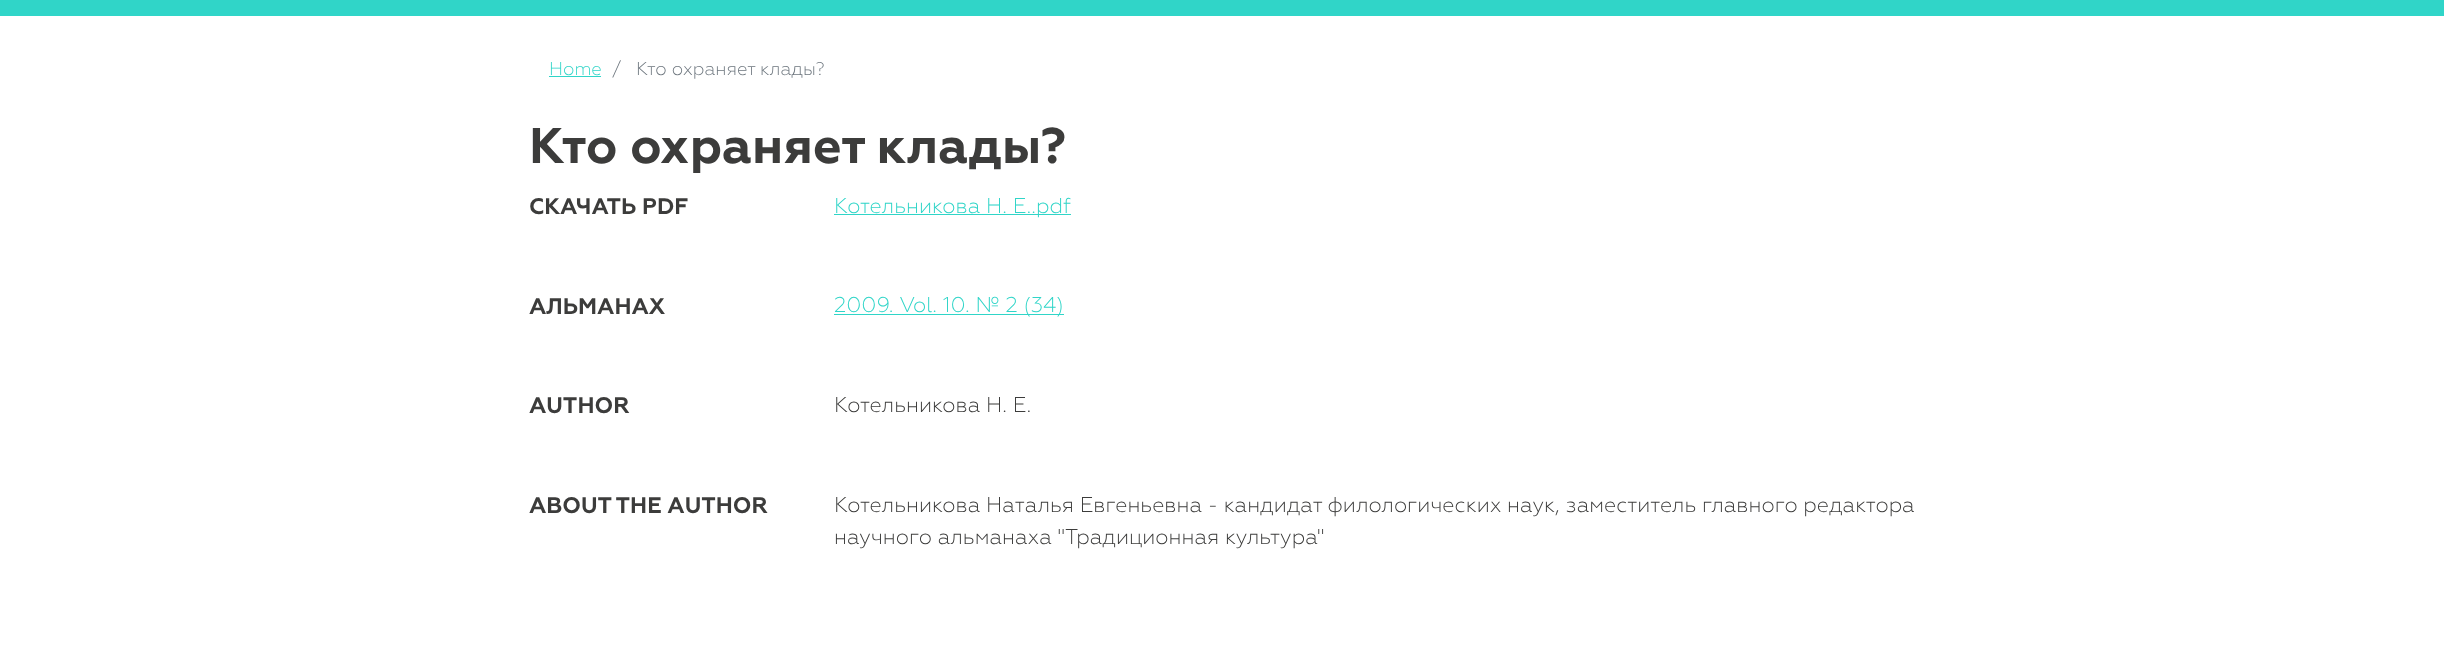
async function draw(canvas) {
	canvas.width = 2444;
	canvas.height = 654;
	const c = canvas.getContext('2d');
	c.miterLimit = 4;
	c.fontKerning = 'normal';

	c.fillStyle = '#fff';
	c.fillRect(0, 0, 2444, 654);
	c.fillStyle = '#30d5c8';
	c.fillRect(0, 0, 2444, 16);
	c.font = '300 18.5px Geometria';
	c.fillText('Home', 549, 75);
	c.fillRect(549, 76, 52, 1);
	c.fillStyle = '#6c757d';
	c.fillText('/', 612, 75);
	c.fillText('Кто охраняет клады?', 636, 75);
	c.font = 'bold 50px Geometria';
	c.fillStyle = '#3c3c3b';
	c.fillText('Кто охраняет клады?', 529, 163);
	c.font = 'bold 22.5px Geometria';
	c.fillText('СКАЧАТЬ PDF', 529, 214);
	c.fillStyle = '#30d5c8';
	c.fillRect(834, 214, 237, 1);
	c.font = '300 21.42px Geometria';
	c.fillText('Котельникова Н. Е..pdf', 834, 213);
	c.font = 'bold 22.5px Geometria';
	c.fillStyle = '#3c3c3b';
	c.fillText('АЛЬМАНАХ', 529, 314);
	c.fillStyle = '#30d5c8';
	c.fillRect(834, 314, 230, 1);
	c.font = '300 21.42px Geometria';
	c.fillText('2009. Vol. 10. № 2 (34)', 834, 312);
	c.font = 'bold 22.5px Geometria';
	c.fillStyle = '#3c3c3b';
	c.fillText('AUTHOR', 529, 413);
	c.font = '300 21.42px Geometria';
	c.fillText('Котельникова Н. Е.', 834, 412);
	c.font = 'bold 22.5px Geometria';
	c.fillText('ABOUT THE AUTHOR', 529, 513);
	c.font = '300 21.42px Geometria';
	c.fillText('Котельникова Наталья Евгеньевна - кандидат филологических наук, заместитель главного редактора', 834, 512);
	c.fillText('научного альманаха "Традиционная культура"', 834, 544);
}

draw(document.querySelector('canvas'));
